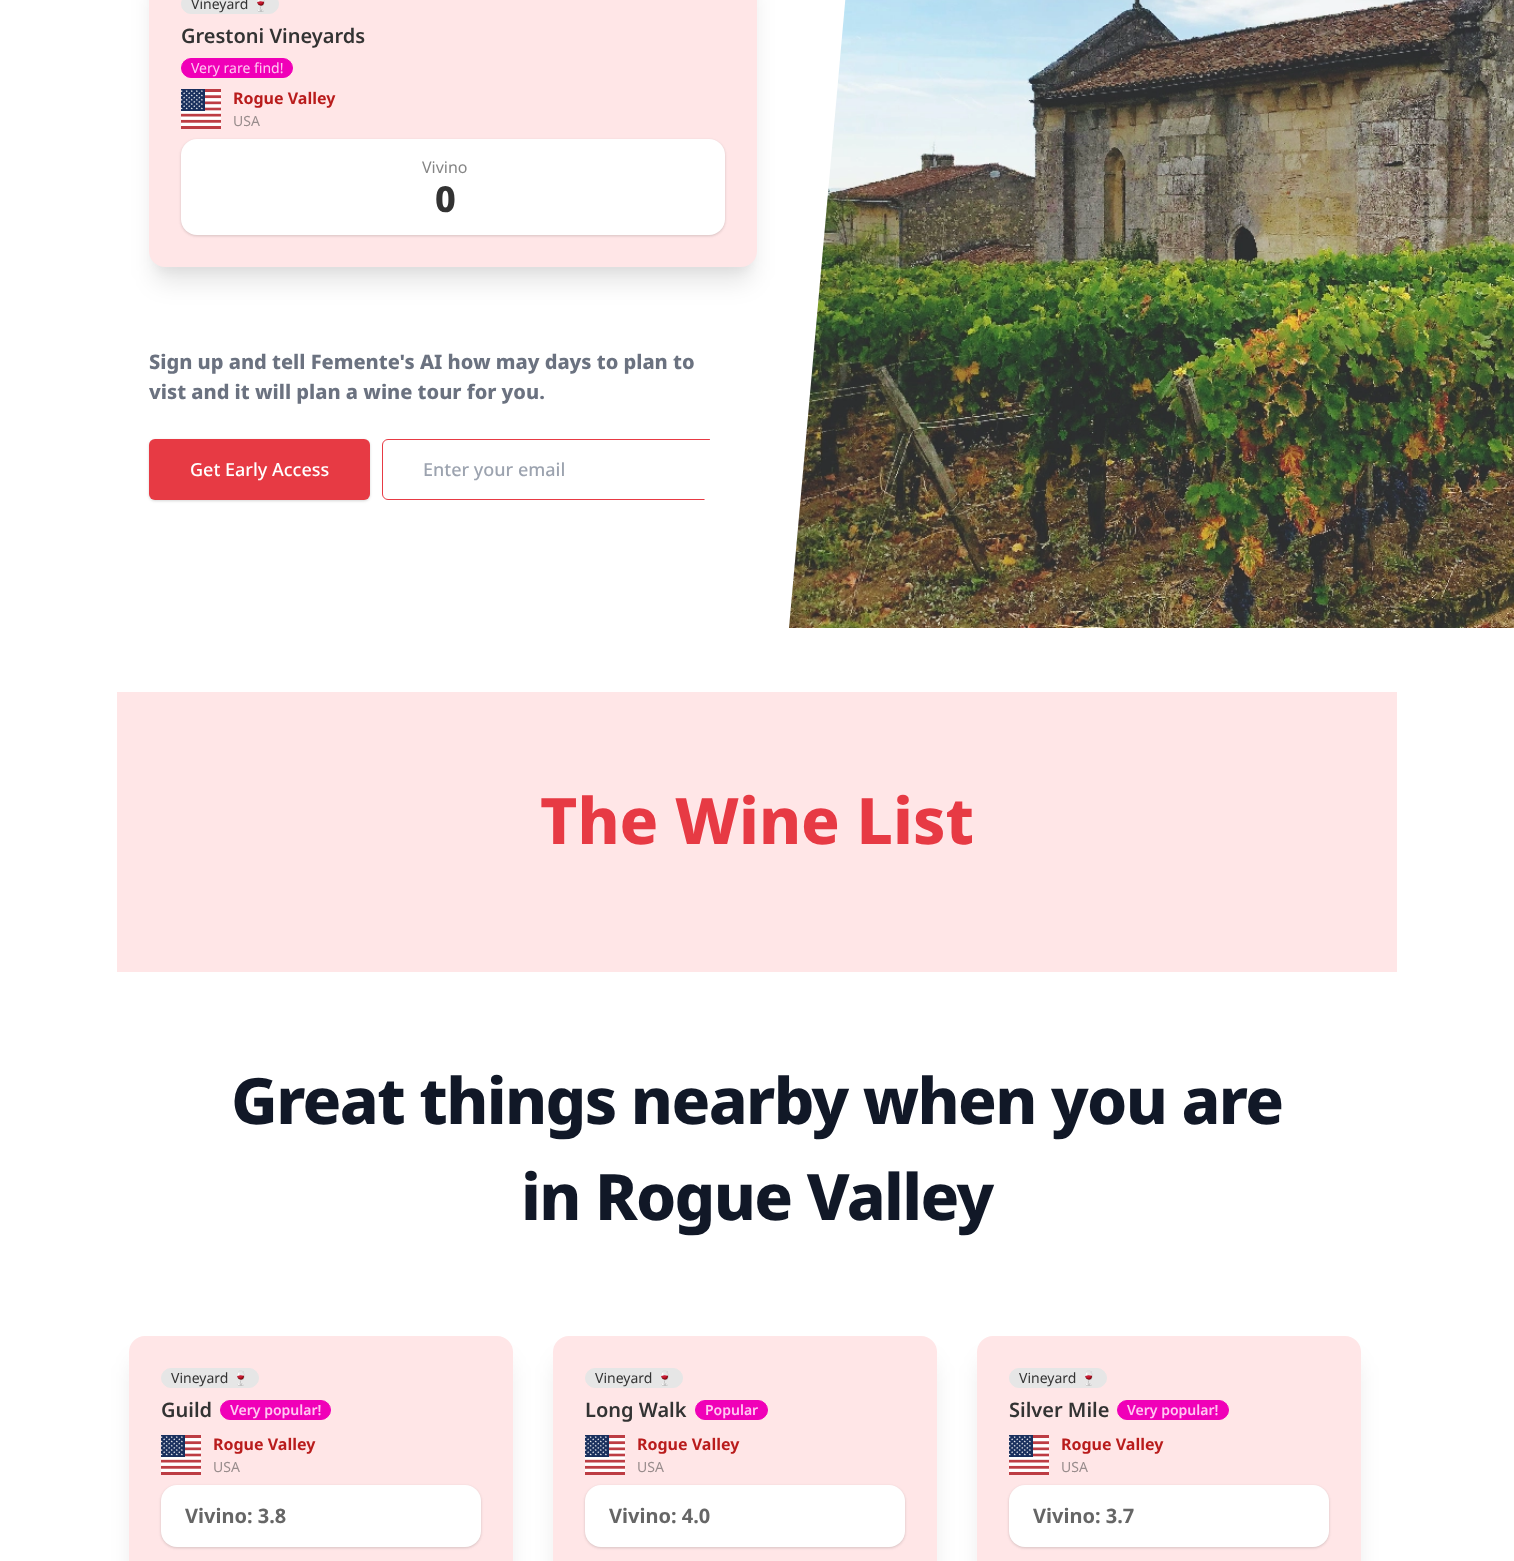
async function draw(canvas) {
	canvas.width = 1514;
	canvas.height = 1561;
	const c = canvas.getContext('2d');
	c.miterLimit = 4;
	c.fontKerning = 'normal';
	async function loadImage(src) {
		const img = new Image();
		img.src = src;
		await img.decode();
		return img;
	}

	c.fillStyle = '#fff';
	c.fillRect(0, 0, 1514, 1561);
	c.font = '800 20px Noto Sans';
	c.fillStyle = '#6b7280';
	c.fillText('Sign up and tell Femente\'s AI how may days to plan to', 149, 369);
	c.beginPath();
	c.roundRect(382.5, 439.5, 338, 60, 5.5);
	c.strokeStyle = '#e73a44';
	c.stroke();
	c.drawImage(await loadImage('img2.png'), 789, 0, 725, 628);
	c.fillStyle = '#fff';
	c.beginPath();
	c.moveTo(789, -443);
	c.lineTo(885, -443);
	c.lineTo(789, 628);
	c.lineTo(693, 628);
	c.closePath();
	c.fill();
	c.fillStyle = '#0000000a';
	c.filter = 'blur(5px)';
	c.beginPath();
	c.roundRect(154, -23, 598, 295, 11);
	c.fill();
	c.filter = 'none';
	c.fillStyle = '#0000001a';
	c.filter = 'blur(12.5px)';
	c.beginPath();
	c.roundRect(154, -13, 598, 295, 11);
	c.fill();
	c.filter = 'none';
	c.fillStyle = '#ffe6e7';
	c.beginPath();
	c.roundRect(149, -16, 608, 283, 16);
	c.fill();
	c.fillStyle = '#e6e6e6';
	c.beginPath();
	c.roundRect(181.5, -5.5, 97, 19, 9.5);
	c.fill();
	c.strokeStyle = '#e6e6e6';
	c.stroke();
	c.font = '14px Noto Sans';
	c.fillStyle = '#333';
	c.fillText('Vineyard', 191, 9);
	c.font = '14px Noto Color Emoji';
	c.fillText('🍷', 252, 9);
	c.font = '600 20px Noto Sans';
	c.fillText('Grestoni Vineyards', 181, 43);
	c.fillStyle = '#f000b8';
	c.beginPath();
	c.roundRect(181.5, 58.5, 111, 19, 9.5);
	c.fill();
	c.strokeStyle = '#f000b8';
	c.stroke();
	c.font = '14px Noto Sans';
	c.fillStyle = '#ffc7f2';
	c.fillText('Very rare find!', 191, 73);
	c.drawImage(await loadImage('img1.png'), 181, 89, 40, 40);
	c.font = 'bold 16px Noto Sans';
	c.fillStyle = '#b91c1c';
	c.fillText('Rogue Valley', 233, 104);
	c.font = '14px Noto Sans';
	c.fillStyle = '#998d8d';
	c.fillText('USA', 233, 126);
	c.fillStyle = '#0000000f';
	c.filter = 'blur(1px)';
	c.beginPath();
	c.roundRect(181, 140, 544, 96, 16);
	c.fill();
	c.filter = 'none';
	c.fillStyle = '#0000001a';
	c.filter = 'blur(1.5px)';
	c.beginPath();
	c.roundRect(181, 140, 544, 96, 16);
	c.fill();
	c.filter = 'none';
	c.fillStyle = '#fff';
	c.beginPath();
	c.roundRect(181, 139, 544, 96, 16);
	c.fill();
	c.font = '16px Noto Sans';
	c.fillStyle = '#858585';
	c.fillText('Vivino', 422, 173);
	c.font = '800 36px Noto Sans';
	c.fillStyle = '#333';
	c.fillText('0', 435, 212);
	c.font = '800 20px Noto Sans';
	c.fillStyle = '#6b7280';
	c.fillText('vist and it will plan a wine tour for you.', 149, 399);
	c.fillStyle = '#0000000f';
	c.filter = 'blur(1px)';
	c.beginPath();
	c.roundRect(149, 440, 221, 61, 6);
	c.fill();
	c.filter = 'none';
	c.fillStyle = '#0000001a';
	c.filter = 'blur(1.5px)';
	c.beginPath();
	c.roundRect(149, 440, 221, 61, 6);
	c.fill();
	c.filter = 'none';
	c.fillStyle = '#e73a44';
	c.beginPath();
	c.roundRect(149, 439, 221, 61, 6);
	c.fill();
	c.font = '500 18px Noto Sans';
	c.fillStyle = '#fff';
	c.fillText('Get Early Access', 190, 476);
	c.fillStyle = '#9ca3af';
	c.fillText('Enter your email', 423, 476);
	c.fillStyle = '#ffe6e7';
	c.fillRect(117, 692, 1280, 280);
	c.font = '800 64px Noto Sans';
	c.fillStyle = '#e73a44';
	c.fillText('The Wine List', 540, 844);
	c.letterSpacing = '-1.6px';
	c.fillStyle = '#111827';
	c.fillText('Great things nearby when you are', 231, 1124);
	c.fillText('in Rogue Valley', 521, 1220);
	c.fillStyle = '#0000001a';
	c.filter = 'blur(12.5px)';
	c.beginPath();
	c.roundRect(134, 1361, 374, 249, 11);
	c.fill();
	c.filter = 'none';
	c.fillStyle = '#ffe6e7';
	c.beginPath();
	c.roundRect(129, 1336, 384, 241, 16);
	c.fill();
	c.fillStyle = '#e6e6e6';
	c.beginPath();
	c.roundRect(161.5, 1368.5, 97, 19, 9.5);
	c.fill();
	c.strokeStyle = '#e6e6e6';
	c.stroke();
	c.letterSpacing = '0px';
	c.font = '14px Noto Sans';
	c.fillStyle = '#333';
	c.fillText('Vineyard', 171, 1383);
	c.font = '14px Noto Color Emoji';
	c.fillText('🍷', 232, 1383);
	c.font = '600 20px Noto Sans';
	c.fillText('Guild', 161, 1417);
	c.fillStyle = '#f000b8';
	c.beginPath();
	c.roundRect(220.5, 1400.5, 110, 19, 9.5);
	c.fill();
	c.strokeStyle = '#f000b8';
	c.stroke();
	c.font = '600 14px Noto Sans';
	c.fillStyle = '#ffc7f2';
	c.fillText('Very popular!', 230, 1415);
	c.drawImage(await loadImage('img1.png'), 161, 1435, 40, 40);
	c.font = 'bold 16px Noto Sans';
	c.fillStyle = '#b91c1c';
	c.fillText('Rogue Valley', 213, 1450);
	c.font = '14px Noto Sans';
	c.fillStyle = '#998d8d';
	c.fillText('USA', 213, 1472);
	c.fillStyle = '#0000000f';
	c.filter = 'blur(1px)';
	c.beginPath();
	c.roundRect(161, 1486, 320, 62, 16);
	c.fill();
	c.filter = 'none';
	c.fillStyle = '#0000001a';
	c.filter = 'blur(1.5px)';
	c.beginPath();
	c.roundRect(161, 1486, 320, 62, 16);
	c.fill();
	c.filter = 'none';
	c.fillStyle = '#fff';
	c.beginPath();
	c.roundRect(161, 1485, 320, 62, 16);
	c.fill();
	c.font = 'bold 20px Noto Sans';
	c.fillStyle = '#666';
	c.fillText('Vivino: 3.8', 185, 1523);
	c.fillStyle = '#0000001a';
	c.filter = 'blur(12.5px)';
	c.beginPath();
	c.roundRect(558, 1361, 374, 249, 11);
	c.fill();
	c.filter = 'none';
	c.fillStyle = '#ffe6e7';
	c.beginPath();
	c.roundRect(553, 1336, 384, 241, 16);
	c.fill();
	c.fillStyle = '#e6e6e6';
	c.beginPath();
	c.roundRect(585.5, 1368.5, 97, 19, 9.5);
	c.fill();
	c.strokeStyle = '#e6e6e6';
	c.stroke();
	c.font = '14px Noto Sans';
	c.fillStyle = '#333';
	c.fillText('Vineyard', 595, 1383);
	c.font = '14px Noto Color Emoji';
	c.fillText('🍷', 656, 1383);
	c.font = '600 20px Noto Sans';
	c.fillText('Long Walk', 585, 1417);
	c.fillStyle = '#f000b8';
	c.beginPath();
	c.roundRect(695.5, 1400.5, 72, 19, 9.5);
	c.fill();
	c.strokeStyle = '#f000b8';
	c.stroke();
	c.font = '600 14px Noto Sans';
	c.fillStyle = '#ffc7f2';
	c.fillText('Popular', 705, 1415);
	c.drawImage(await loadImage('img1.png'), 585, 1435, 40, 40);
	c.font = 'bold 16px Noto Sans';
	c.fillStyle = '#b91c1c';
	c.fillText('Rogue Valley', 637, 1450);
	c.font = '14px Noto Sans';
	c.fillStyle = '#998d8d';
	c.fillText('USA', 637, 1472);
	c.fillStyle = '#0000000f';
	c.filter = 'blur(1px)';
	c.beginPath();
	c.roundRect(585, 1486, 320, 62, 16);
	c.fill();
	c.filter = 'none';
	c.fillStyle = '#0000001a';
	c.filter = 'blur(1.5px)';
	c.beginPath();
	c.roundRect(585, 1486, 320, 62, 16);
	c.fill();
	c.filter = 'none';
	c.fillStyle = '#fff';
	c.beginPath();
	c.roundRect(585, 1485, 320, 62, 16);
	c.fill();
	c.font = 'bold 20px Noto Sans';
	c.fillStyle = '#666';
	c.fillText('Vivino: 4.0', 609, 1523);
	c.fillStyle = '#0000001a';
	c.filter = 'blur(12.5px)';
	c.beginPath();
	c.roundRect(982, 1361, 374, 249, 11);
	c.fill();
	c.filter = 'none';
	c.fillStyle = '#ffe6e7';
	c.beginPath();
	c.roundRect(977, 1336, 384, 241, 16);
	c.fill();
	c.fillStyle = '#e6e6e6';
	c.beginPath();
	c.roundRect(1009.5, 1368.5, 97, 19, 9.5);
	c.fill();
	c.strokeStyle = '#e6e6e6';
	c.stroke();
	c.font = '14px Noto Sans';
	c.fillStyle = '#333';
	c.fillText('Vineyard', 1019, 1383);
	c.font = '14px Noto Color Emoji';
	c.fillText('🍷', 1080, 1383);
	c.font = '600 20px Noto Sans';
	c.fillText('Silver Mile', 1009, 1417);
	c.fillStyle = '#f000b8';
	c.beginPath();
	c.roundRect(1117.5, 1400.5, 111, 19, 9.5);
	c.fill();
	c.strokeStyle = '#f000b8';
	c.stroke();
	c.font = '600 14px Noto Sans';
	c.fillStyle = '#ffc7f2';
	c.fillText('Very popular!', 1127, 1415);
	c.drawImage(await loadImage('img1.png'), 1009, 1435, 40, 40);
	c.font = 'bold 16px Noto Sans';
	c.fillStyle = '#b91c1c';
	c.fillText('Rogue Valley', 1061, 1450);
	c.font = '14px Noto Sans';
	c.fillStyle = '#998d8d';
	c.fillText('USA', 1061, 1472);
	c.fillStyle = '#0000000f';
	c.filter = 'blur(1px)';
	c.beginPath();
	c.roundRect(1009, 1486, 320, 62, 16);
	c.fill();
	c.filter = 'none';
	c.fillStyle = '#0000001a';
	c.filter = 'blur(1.5px)';
	c.beginPath();
	c.roundRect(1009, 1486, 320, 62, 16);
	c.fill();
	c.filter = 'none';
	c.fillStyle = '#fff';
	c.beginPath();
	c.roundRect(1009, 1485, 320, 62, 16);
	c.fill();
	c.font = 'bold 20px Noto Sans';
	c.fillStyle = '#666';
	c.fillText('Vivino: 3.7', 1033, 1523);
}

draw(document.querySelector('canvas'));
